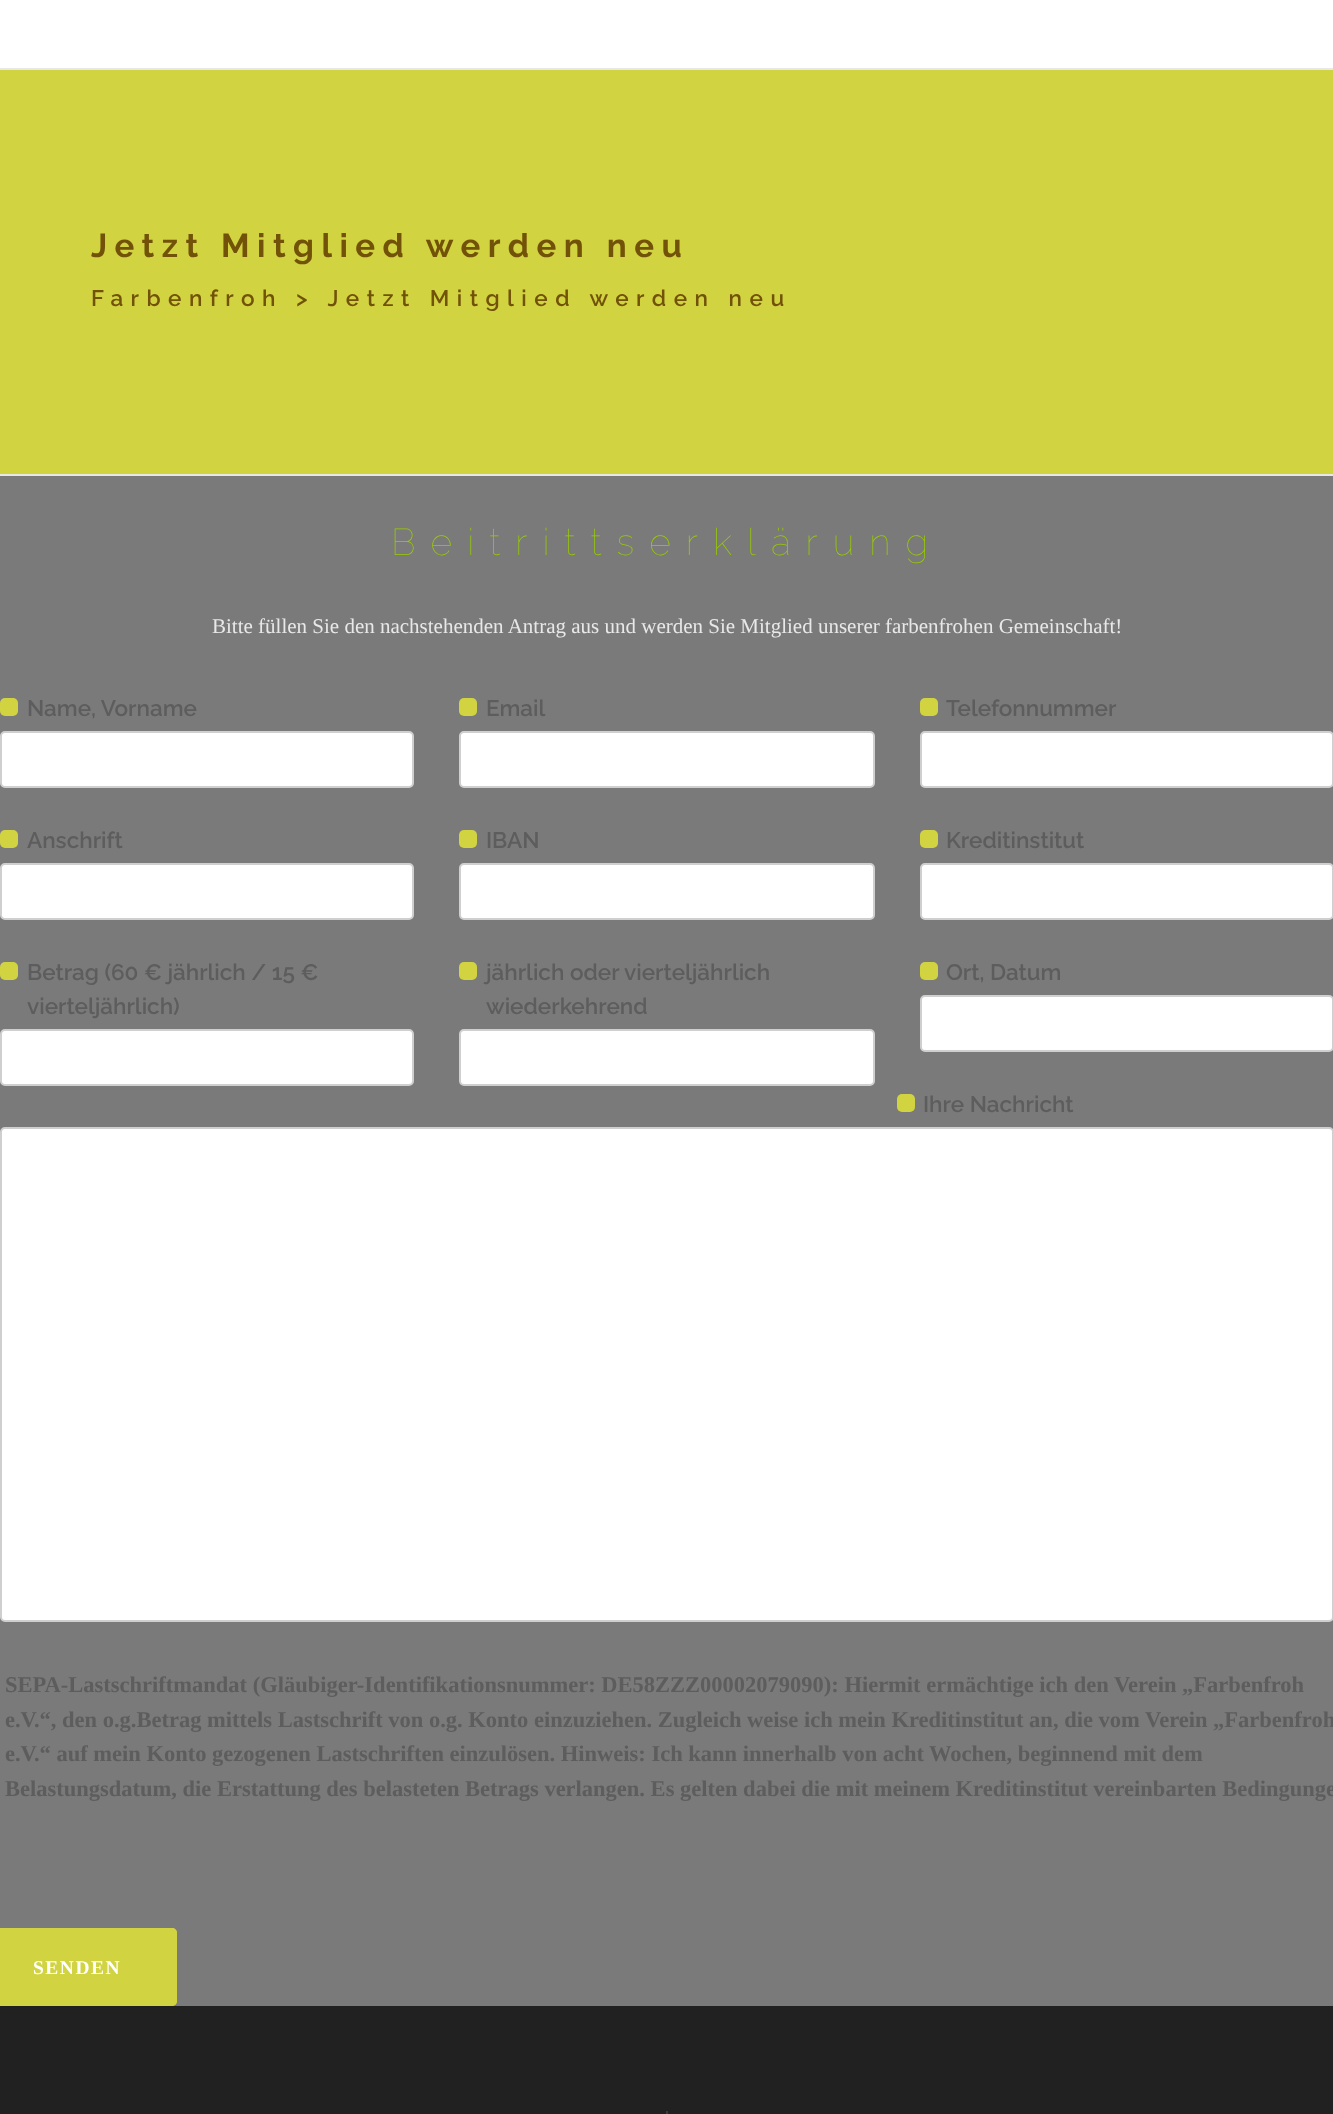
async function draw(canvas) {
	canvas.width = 1333;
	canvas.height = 2114;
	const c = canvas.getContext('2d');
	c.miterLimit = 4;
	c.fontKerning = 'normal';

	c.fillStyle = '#fff';
	c.fillRect(0, 0, 1333, 2114);
	for (const [x, y, w, h, color] of [
		[0, 70, 1333, 404, '#d1d341'],
		[0, 68, 1333, 2, '#e7e7e7'],
		[0, 474, 1333, 2, '#e7e7e7'],
	]) {
		c.fillStyle = color;
		c.fillRect(x, y, w, h);
	}
	c.letterSpacing = '7.5px';
	c.font = 'bold 33px Raleway';
	c.fillStyle = '#725208';
	c.fillText('Jetzt Mitglied werden neu', 91, 257);
	c.font = '600 22.5px Raleway';
	c.fillText('Farbenfroh > Jetzt Mitglied werden neu', 91, 306);
	c.fillStyle = '#7a7a7a';
	c.fillRect(0, 476, 1333, 1530);
	c.letterSpacing = '15px';
	c.font = '100 37.5px Raleway';
	c.fillStyle = '#9c0';
	c.fillText('Beitrittserklärung', 391, 555);
	c.letterSpacing = '0px';
	c.font = '21px Liberation Serif';
	c.fillStyle = '#e8e8e8';
	c.fillText('Bitte füllen Sie den nachstehenden Antrag aus und werden Sie Mitglied unserer farbenfrohen Gemeinschaft!', 212, 633);
	c.fillStyle = '#d1d341';
	c.beginPath();
	c.roundRect(0, 698, 18, 18, 5);
	c.fill();
	c.font = '600 22.5px Raleway';
	c.fillStyle = '#5d5d5d';
	c.fillText('Name, Vorname', 27, 716);
	c.fillStyle = '#fff';
	c.beginPath();
	c.roundRect(1, 732, 412, 55, 4);
	c.fill();
	c.strokeStyle = '#cfcfcf';
	c.lineWidth = 2;
	c.stroke();
	c.fillStyle = '#d1d341';
	c.beginPath();
	c.roundRect(459, 698, 18, 18, 5);
	c.fill();
	c.fillStyle = '#5d5d5d';
	c.fillText('Email', 486, 716);
	c.fillStyle = '#fff';
	c.beginPath();
	c.roundRect(460, 732, 414, 55, 4);
	c.fill();
	c.stroke();
	c.fillStyle = '#d1d341';
	c.beginPath();
	c.roundRect(920, 698, 18, 18, 5);
	c.fill();
	c.fillStyle = '#5d5d5d';
	c.fillText('Telefonnummer', 946, 716);
	c.fillStyle = '#fff';
	c.beginPath();
	c.roundRect(921, 732, 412, 55, 4);
	c.fill();
	c.stroke();
	c.fillStyle = '#d1d341';
	c.beginPath();
	c.roundRect(0, 830, 18, 18, 5);
	c.fill();
	c.fillStyle = '#5d5d5d';
	c.fillText('Anschrift', 27, 848);
	c.fillStyle = '#fff';
	c.beginPath();
	c.roundRect(1, 864, 412, 55, 4);
	c.fill();
	c.stroke();
	c.fillStyle = '#d1d341';
	c.beginPath();
	c.roundRect(459, 830, 18, 18, 5);
	c.fill();
	c.fillStyle = '#5d5d5d';
	c.fillText('IBAN', 486, 848);
	c.fillStyle = '#fff';
	c.beginPath();
	c.roundRect(460, 864, 414, 55, 4);
	c.fill();
	c.stroke();
	c.fillStyle = '#d1d341';
	c.beginPath();
	c.roundRect(920, 830, 18, 18, 5);
	c.fill();
	c.fillStyle = '#5d5d5d';
	c.fillText('Kreditinstitut', 946, 848);
	c.fillStyle = '#fff';
	c.beginPath();
	c.roundRect(921, 864, 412, 55, 4);
	c.fill();
	c.stroke();
	c.fillStyle = '#d1d341';
	c.beginPath();
	c.roundRect(0, 962, 18, 18, 5);
	c.fill();
	c.fillStyle = '#5d5d5d';
	c.fillText('Betrag (60 € jährlich / 15 €', 27, 980);
	c.fillText('vierteljährlich)', 27, 1014);
	c.fillStyle = '#fff';
	c.beginPath();
	c.roundRect(1, 1030, 412, 55, 4);
	c.fill();
	c.stroke();
	c.fillStyle = '#d1d341';
	c.beginPath();
	c.roundRect(459, 962, 18, 18, 5);
	c.fill();
	c.fillStyle = '#5d5d5d';
	c.fillText('jährlich oder vierteljährlich', 486, 980);
	c.fillText('wiederkehrend', 486, 1014);
	c.fillStyle = '#fff';
	c.beginPath();
	c.roundRect(460, 1030, 414, 55, 4);
	c.fill();
	c.stroke();
	c.fillStyle = '#d1d341';
	c.beginPath();
	c.roundRect(920, 962, 18, 18, 5);
	c.fill();
	c.fillStyle = '#5d5d5d';
	c.fillText('Ort, Datum', 946, 980);
	c.fillStyle = '#fff';
	c.beginPath();
	c.roundRect(921, 996, 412, 55, 4);
	c.fill();
	c.stroke();
	c.fillStyle = '#d1d341';
	c.beginPath();
	c.roundRect(897, 1094, 18, 18, 5);
	c.fill();
	c.fillStyle = '#5d5d5d';
	c.fillText('Ihre Nachricht', 923, 1112);
	c.fillStyle = '#fff';
	c.beginPath();
	c.roundRect(1, 1128, 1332, 493, 4);
	c.fill();
	c.stroke();
	c.font = 'bold 22.5px Liberation Serif';
	c.fillStyle = '#5d5d5d';
	for (const [text, x, y] of [
		['SEPA-Lastschriftmandat (Gläubiger-Identifikationsnummer: DE58ZZZ00002079090): Hiermit ermächtige ich den Verein „Farbenfroh', 5, 1692],
		['e.V.“, den o.g.Betrag mittels Lastschrift von o.g. Konto einzuziehen. Zugleich weise ich mein Kreditinstitut an, die vom Verein „Farbenfroh', 5, 1727],
		['e.V.“ auf mein Konto gezogenen Lastschriften einzulösen. Hinweis: Ich kann innerhalb von acht', 5, 1761],
		['Wochen, beginnend mit dem', 929, 1761],
		['Belastungsdatum, die Erstattung des belasteten Betrags verlangen. Es gelten dabei die mit meinem Kreditinstitut vereinbarten Bedingunge', 5, 1796],
	]) {
		c.fillText(text, x, y);
	}
	c.fillStyle = '#d1d341';
	c.beginPath();
	c.roundRect(0, 1928, 177, 78, [0, 5, 5, 0]);
	c.fill();
	c.beginPath();
	c.roundRect(-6.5, 1929.5, 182, 75, 3.5);
	c.strokeStyle = '#d1d341';
	c.lineWidth = 3;
	c.stroke();
	c.letterSpacing = '1.5px';
	c.font = 'bold 19.5px Liberation Serif';
	c.fillStyle = '#fff';
	c.fillText('SENDEN', 33, 1974);
	c.fillStyle = '#212121';
	c.fillRect(0, 2006, 1333, 108);
	c.fillStyle = '#3b3b3b';
	c.fillRect(666, 2111, 2, 3);
}

draw(document.querySelector('canvas'));
